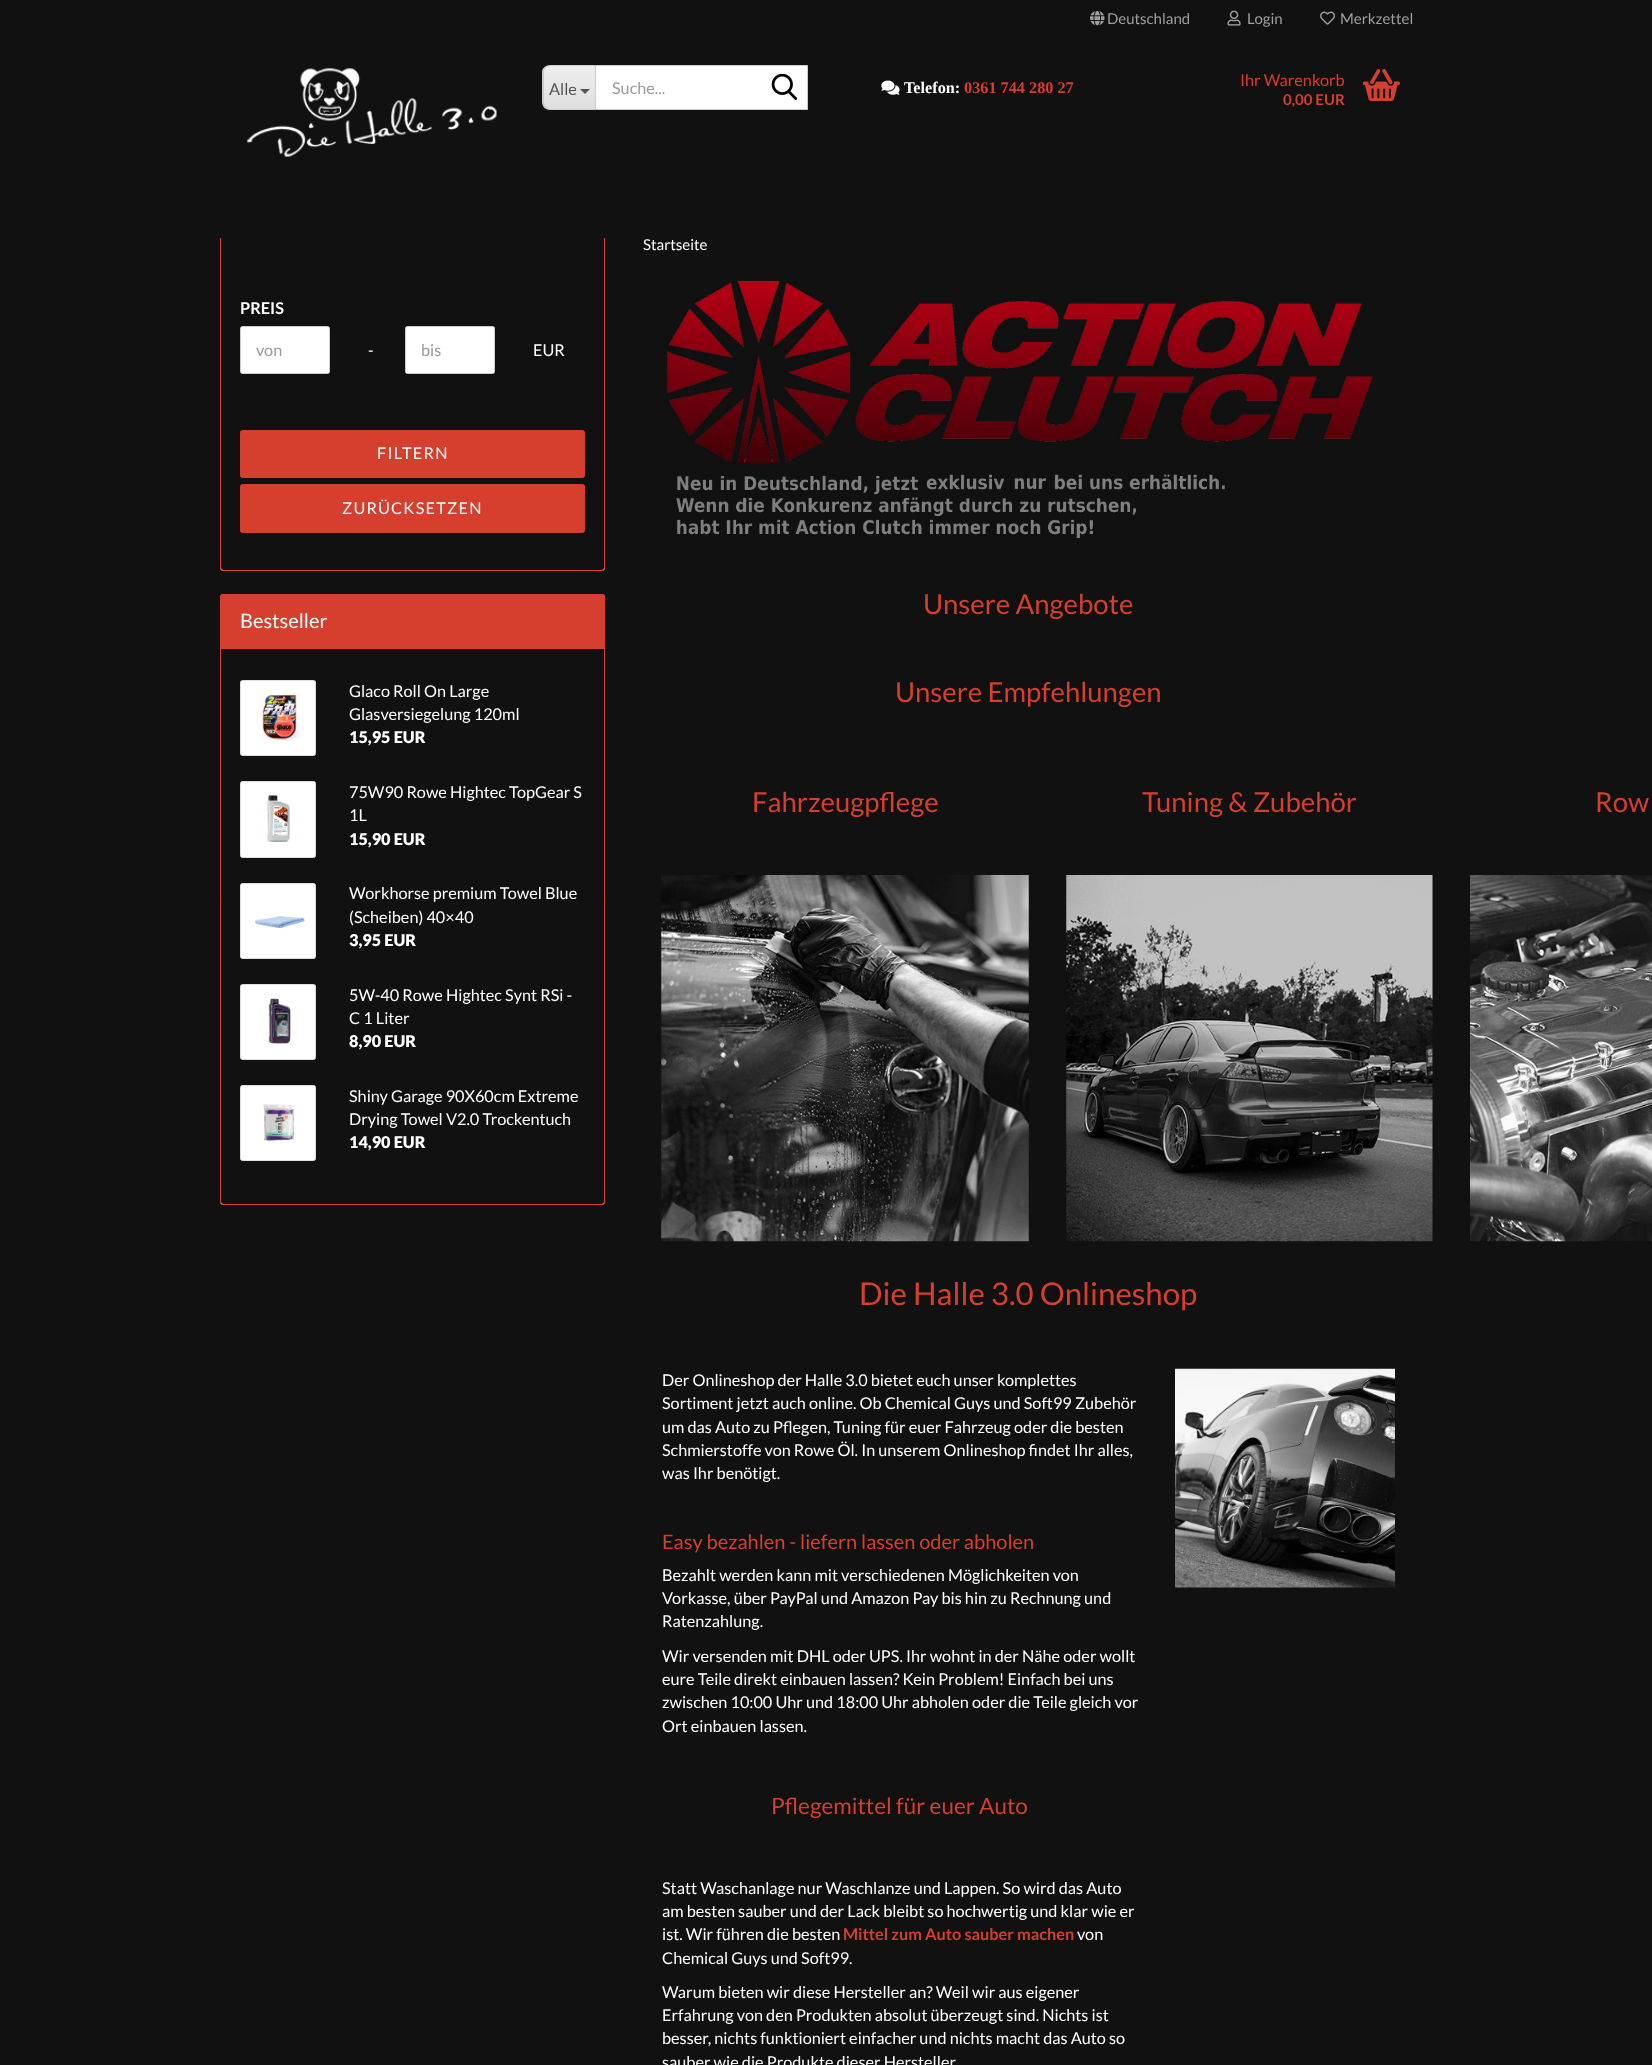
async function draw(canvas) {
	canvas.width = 1652;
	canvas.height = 2065;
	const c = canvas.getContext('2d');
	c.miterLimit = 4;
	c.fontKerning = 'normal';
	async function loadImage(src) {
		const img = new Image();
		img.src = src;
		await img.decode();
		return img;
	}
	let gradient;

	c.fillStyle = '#111';
	c.fillRect(0, 0, 1652, 2065);
	c.drawImage(await loadImage('img1.png'), 1090, 10, 15, 16);
	c.font = '15px Lato';
	c.fillStyle = '#9f9f9f';
	c.fillText('Deutschland', 1107, 24);
	c.drawImage(await loadImage('img2.png'), 1227, 10, 14, 16);
	c.fillText('Login', 1247, 24);
	c.drawImage(await loadImage('img3.png'), 1320, 11, 15, 14);
	c.fillText('Merkzettel', 1340, 24);
	c.drawImage(await loadImage('img4.png'), 247, 68, 250, 89);
	c.save();
	c.beginPath();
	c.roundRect(543, 65, 52, 45, [8, 0, 0, 8]);
	c.clip();
	gradient = c.createLinearGradient(569, 66, 569, 109);
	gradient.addColorStop(0, '#eee');
	gradient.addColorStop(1, '#dedede');
	c.fillStyle = gradient;
	c.fillRect(544, 66, 51, 43);
	c.restore();
	c.fillStyle = '#ccc';
	c.beginPath();
	c.moveTo(550, 65);
	c.lineTo(595, 65);
	c.lineTo(595, 110);
	c.lineTo(550, 110);
	c.bezierCurveTo(546, 110, 542, 107, 542, 102);
	c.lineTo(542, 72);
	c.bezierCurveTo(542, 68, 546, 65, 550, 65);
	c.closePath();
	c.moveTo(550, 66);
	c.lineTo(595, 66);
	c.lineTo(595, 109);
	c.lineTo(550, 109);
	c.bezierCurveTo(547, 109, 544, 106, 544, 102);
	c.lineTo(544, 72);
	c.bezierCurveTo(544, 69, 547, 66, 550, 66);
	c.closePath();
	c.fill('evenodd');
	c.font = '16.25px Lato';
	c.fillStyle = '#555';
	c.fillText('Alle', 549, 95);
	c.beginPath();
	c.moveTo(580, 89);
	c.lineTo(590, 89);
	c.lineTo(585, 94);
	c.closePath();
	c.fill();
	c.fillStyle = '#fff';
	c.beginPath();
	c.rect(595.5, 65.5, 212, 44);
	c.fill();
	c.strokeStyle = '#ccc';
	c.stroke();
	c.fillStyle = '#999';
	c.fillText('Suche...', 612, 94);
	c.drawImage(await loadImage('img5.png'), 771, 74, 26, 26);
	c.drawImage(await loadImage('img6.png'), 881, 80, 19, 15);
	c.font = 'bold 16.25px Liberation Serif';
	c.fillStyle = '#fff';
	c.fillText('Telefon:', 904, 93);
	c.fillStyle = '#d63e2d';
	c.fillText('0361 744 280 27', 964, 93);
	c.font = '16.25px Lato';
	c.fillText('Ihr Warenkorb', 1240, 86);
	c.font = 'bold 15px Lato';
	c.fillText('0,00 EUR', 1283, 105);
	c.drawImage(await loadImage('img7.png'), 1363, 69, 37, 32);
	c.fillStyle = '#fff';
	c.beginPath();
	c.roundRect(220.5, 226.5, 384, 344, 2);
	c.fill();
	c.strokeStyle = '#d63e2d';
	c.stroke();
	c.fillStyle = '#111';
	c.beginPath();
	c.roundRect(221, 228, 383, 342, [0, 0, 2.5, 2.5]);
	c.fill();
	c.fillRect(220, 226, 385, 12);
	c.font = 'bold 16.25px Lato';
	c.fillStyle = '#fff';
	c.fillText('PREIS', 240, 314);
	c.beginPath();
	c.roundRect(240.5, 326.5, 89, 47, 2);
	c.fill();
	c.strokeStyle = '#ccc';
	c.stroke();
	c.font = '16.25px Lato';
	c.fillStyle = '#999';
	c.fillText('von', 256, 356);
	c.fillStyle = '#fff';
	c.fillText('-', 368, 356);
	c.beginPath();
	c.roundRect(405.5, 326.5, 89, 47, 2);
	c.fill();
	c.stroke();
	c.fillStyle = '#999';
	c.fillText('bis', 421, 356);
	c.fillStyle = '#fff';
	c.fillText('EUR', 533, 356);
	c.fillStyle = '#d63e2d';
	c.beginPath();
	c.roundRect(240.5, 430.5, 344, 47, 2);
	c.fill();
	c.strokeStyle = '#d63e2d';
	c.stroke();
	c.letterSpacing = '1.25px';
	c.fillStyle = '#fff';
	c.fillText('FILTERN', 377, 459);
	c.fillStyle = '#d63e2d';
	c.beginPath();
	c.roundRect(240.5, 484.5, 344, 48, 2);
	c.fill();
	c.stroke();
	c.fillStyle = '#fff';
	c.fillText('ZURÜCKSETZEN', 342, 514);
	c.beginPath();
	c.roundRect(220.5, 594.5, 384, 610, 2);
	c.fill();
	c.stroke();
	c.fillStyle = '#d63e2d';
	c.beginPath();
	c.roundRect(221, 595, 383, 54, [1, 1, 0, 0]);
	c.fill();
	c.beginPath();
	c.moveTo(222, 596);
	c.lineTo(602, 596);
	c.bezierCurveTo(603, 596, 604, 597, 604, 598);
	c.bezierCurveTo(604, 597, 604, 595, 603, 595);
	c.lineTo(221, 595);
	c.lineTo(221, 598);
	c.closePath();
	c.fill();
	c.letterSpacing = '0px';
	c.font = '20px Lato';
	c.fillStyle = '#fff';
	c.fillText('Bestseller', 240, 628);
	c.fillStyle = '#111';
	c.beginPath();
	c.roundRect(221, 649, 383, 555, [0, 0, 2.5, 2.5]);
	c.fill();
	c.fillStyle = '#fff';
	c.beginPath();
	c.roundRect(240.5, 680.5, 75, 75, 2);
	c.fill();
	c.strokeStyle = '#ddd';
	c.stroke();
	c.drawImage(await loadImage('img8.png'), 261, 694, 41, 48);
	c.font = '16.25px Lato';
	c.fillText('Glaco Roll On Large', 349, 697);
	c.fillText('Glasversiegelung 120ml', 349, 720);
	c.font = '900 16.25px Lato';
	c.fillText('15,95 EUR', 349, 743);
	c.beginPath();
	c.roundRect(240.5, 781.5, 75, 76, 2);
	c.fill();
	c.stroke();
	c.drawImage(await loadImage('img9.png'), 266, 794, 24, 48);
	c.font = '16.25px Lato';
	c.fillText('75W90 Rowe Hightec TopGear S', 349, 798);
	c.fillText('1L', 349, 821);
	c.font = '900 16.25px Lato';
	c.fillText('15,90 EUR', 349, 845);
	c.beginPath();
	c.roundRect(240.5, 883.5, 75, 75, 2);
	c.fill();
	c.stroke();
	c.drawImage(await loadImage('img10.png'), 255, 916, 50, 13);
	c.font = '16.25px Lato';
	c.fillText('Workhorse premium Towel Blue', 349, 899);
	c.fillText('(Scheiben) 40×40', 349, 923);
	c.font = '900 16.25px Lato';
	c.fillText('3,95 EUR', 349, 946);
	c.beginPath();
	c.roundRect(240.5, 984.5, 75, 75, 2);
	c.fill();
	c.stroke();
	c.drawImage(await loadImage('img11.png'), 268, 998, 23, 46);
	c.font = '16.25px Lato';
	c.fillText('5W-40 Rowe Hightec Synt RSi -', 349, 1001);
	c.fillText('C 1 Liter', 349, 1024);
	c.font = '900 16.25px Lato';
	c.fillText('8,90 EUR', 349, 1047);
	c.beginPath();
	c.roundRect(240.5, 1085.5, 75, 75, 2);
	c.fill();
	c.stroke();
	c.drawImage(await loadImage('img12.png'), 263, 1104, 32, 38);
	c.font = '16.25px Lato';
	c.fillText('Shiny Garage 90X60cm Extreme', 349, 1102);
	c.fillText('Drying Towel V2.0 Trockentuch', 349, 1125);
	c.font = '900 16.25px Lato';
	c.fillText('14,90 EUR', 349, 1148);
	c.font = '15px Lato';
	c.fillText('Startseite', 643, 250);
	c.drawImage(await loadImage('img13.png'), 666, 281, 707, 257);
	c.font = '27.5px Lato';
	c.fillStyle = '#d63e2d';
	for (const [text, x, y] of [
		['Unsere Angebote', 923, 614],
		['Unsere Empfehlungen', 895, 702],
		['Fahrzeugpflege', 752, 812],
	]) {
		c.fillText(text, x, y);
	}
	c.drawImage(await loadImage('img14.png'), 661, 875, 368, 367);
	c.fillText('Tuning & Zubehör', 1142, 812);
	c.drawImage(await loadImage('img15.png'), 1066, 875, 367, 367);
	c.fillText('Row', 1595, 812);
	c.drawImage(await loadImage('img16.png'), 1470, 875, 182, 367);
	c.font = '31.25px Lato';
	c.fillText('Die Halle 3.0 Onlineshop', 859, 1305);
	c.font = '16.25px Lato';
	c.fillStyle = '#fff';
	for (const [text, x, y] of [
		['Der Onlineshop der Halle 3.0 bietet euch unser komplettes', 662, 1386],
		['Sortiment jetzt auch online. Ob Chemical Guys und Soft99 Zubehör', 662, 1409],
		['um das Auto zu Pflegen, Tuning für euer Fahrzeug oder die besten', 662, 1433],
		['Schmierstoffe von Rowe Öl. In unserem Onlineshop findet Ihr alles,', 662, 1456],
		['was Ihr benötigt.', 662, 1479],
	]) {
		c.fillText(text, x, y);
	}
	c.font = '20px Lato';
	c.fillStyle = '#d63e2d';
	c.fillText('Easy bezahlen - liefern lassen oder abholen', 662, 1549);
	c.font = '16.25px Lato';
	c.fillStyle = '#fff';
	for (const [text, x, y] of [
		['Bezahlt werden kann mit verschiedenen Möglichkeiten von', 662, 1581],
		['Vorkasse, über PayPal und Amazon Pay bis hin zu Rechnung und', 662, 1604],
		['Ratenzahlung.', 662, 1627],
		['Wir versenden mit DHL oder UPS. Ihr wohnt in der Nähe oder wollt', 662, 1662],
		['eure Teile direkt einbauen lassen? Kein Problem! Einfach bei uns', 662, 1685],
		['zwischen 10:00 Uhr und 18:00 Uhr abholen oder die Teile gleich vor', 662, 1708],
		['Ort einbauen lassen.', 662, 1732],
	]) {
		c.fillText(text, x, y);
	}
	c.font = '22.5px Lato';
	c.fillStyle = '#d63e2d';
	c.fillText('Pflegemittel für euer Auto', 771, 1814);
	c.font = '16.25px Lato';
	c.fillStyle = '#fff';
	for (const [text, x, y] of [
		['Statt Waschanlage nur Waschlanze und Lappen. So wird das Auto', 662, 1894],
		['am besten sauber und der Lack bleibt so hochwertig und klar wie er', 662, 1917],
		['ist. Wir führen die besten', 662, 1940],
	]) {
		c.fillText(text, x, y);
	}
	c.font = 'bold 16.25px Lato';
	c.fillStyle = '#d63e2d';
	c.fillText('Mittel zum Auto sauber machen', 843, 1940);
	c.font = '16.25px Lato';
	c.fillStyle = '#fff';
	for (const [text, x, y] of [
		['von', 1077, 1940],
		['Chemical Guys und Soft99.', 662, 1964],
		['Warum bieten wir diese Hersteller an? Weil wir aus eigener', 662, 1998],
		['Erfahrung von den Produkten absolut überzeugt sind. Nichts ist', 662, 2021],
		['besser, nichts funktioniert einfacher und nichts macht das Auto so', 662, 2044],
		['sauber wie die Produkte dieser Hersteller.', 662, 2068],
	]) {
		c.fillText(text, x, y);
	}
	c.drawImage(await loadImage('img17.png'), 1175, 1368, 220, 220);
}

draw(document.querySelector('canvas'));
